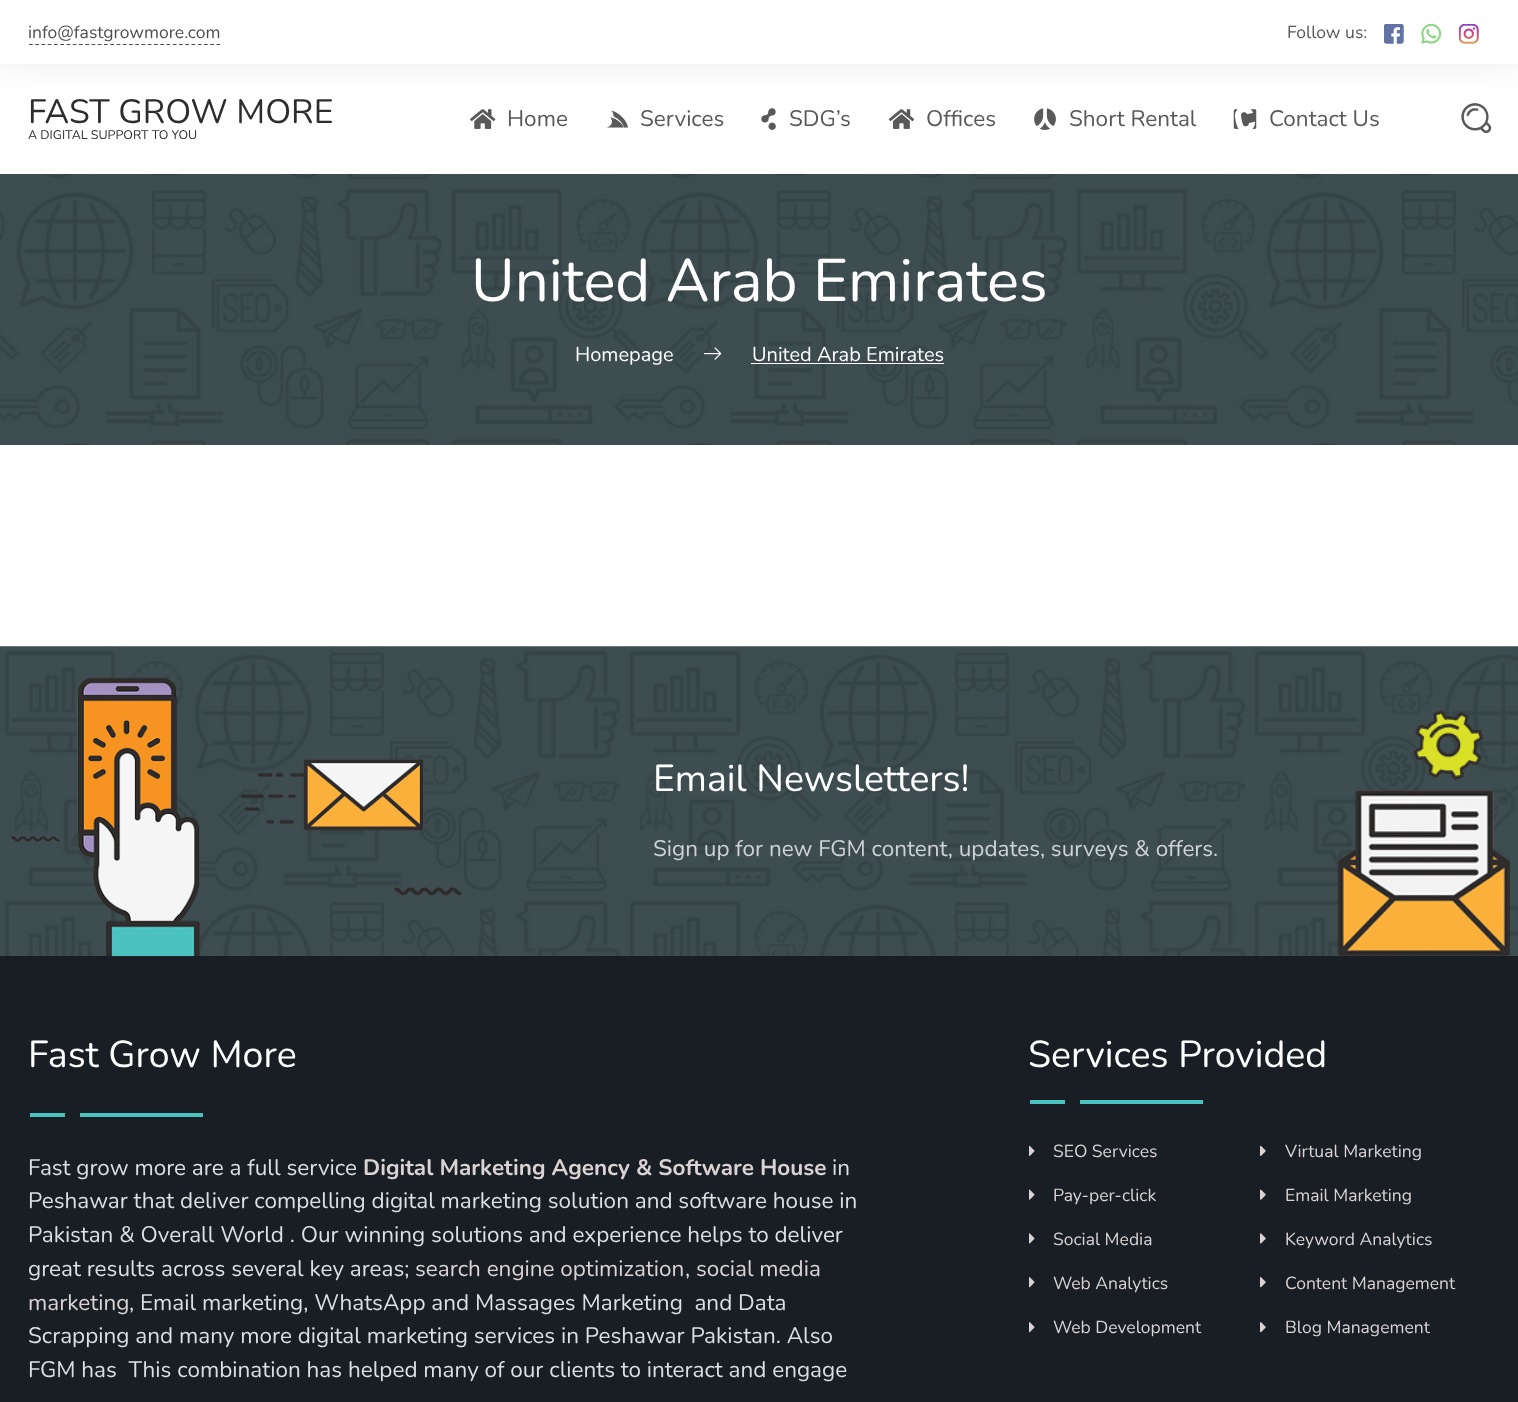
async function draw(canvas) {
	canvas.width = 1518;
	canvas.height = 1402;
	const c = canvas.getContext('2d');
	c.miterLimit = 4;
	c.fontKerning = 'normal';
	async function loadImage(src) {
		const img = new Image();
		img.src = src;
		await img.decode();
		return img;
	}

	c.fillStyle = '#fff';
	c.fillRect(0, 0, 1518, 1402);
	c.drawImage(await loadImage('img4.png'), 470, 109, 26, 20);
	c.drawImage(await loadImage('img5.png'), 606, 110, 22, 18);
	c.drawImage(await loadImage('img6.png'), 761, 108, 15, 22);
	c.drawImage(await loadImage('img7.png'), 888, 109, 27, 20);
	c.drawImage(await loadImage('img8.png'), 1034, 108, 22, 22);
	c.drawImage(await loadImage('img9.png'), 1233, 109, 24, 20);
	c.drawImage(await loadImage('img10.png'), 1461, 103, 31, 31);
	c.fillStyle = '#0000004d';
	c.filter = 'blur(25px)';
	c.beginPath();
	c.rect(0, -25, 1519, 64);
	c.fill();
	c.filter = 'none';
	c.fillStyle = '#fff';
	c.fillRect(0, 0, 1518, 64);
	c.font = '17.5px Nunito';
	c.fillStyle = '#504c4c';
	c.fillText('info@fastgrowmore.com', 28, 38);
	c.beginPath();
	c.moveTo(29, 44.5);
	c.lineTo(220, 44.5);
	c.strokeStyle = '#504c4c';
	c.lineWidth = 1.2;
	c.setLineDash([3.75, 2.5]);
	c.stroke();
	c.fillStyle = '#595959';
	c.fillText('Follow us:', 1287, 38);
	c.drawImage(await loadImage('img1.png'), 1384, 24, 20, 20);
	c.drawImage(await loadImage('img2.png'), 1421, 24, 20, 20);
	c.drawImage(await loadImage('img3.png'), 1459, 24, 20, 20);
	c.font = '33.75px Nunito';
	c.fillStyle = '#2f2c2c';
	c.fillText('FAST GROW MORE', 28, 123);
	c.font = '12.5px Nunito';
	c.fillText('A DIGITAL SUPPORT TO YOU', 28, 139);
	c.font = '22.5px Nunito';
	c.fillStyle = '#595959';
	for (const [text, x, y] of [
		['Home', 507, 126],
		['Services', 640, 126],
		['SDG’s', 789, 126],
		['Offices', 926, 126],
		['Short Rental', 1069, 126],
		['Contact Us', 1269, 126],
	]) {
		c.fillText(text, x, y);
	}
	c.drawImage(await loadImage('img11.png'), 0, 174, 1518, 271);
	c.font = '60px Nunito';
	c.fillStyle = '#fff';
	c.fillText('United Arab Emirates', 471, 301);
	c.font = '20px Nunito';
	c.fillText('Homepage', 575, 361);
	c.drawImage(await loadImage('img12.png'), 703, 347, 19, 13);
	c.fillText('United Arab Emirates', 752, 361);
	c.fillRect(751, 363, 193, 1);
	c.drawImage(await loadImage('img13.png'), 0, 646, 1518, 310);
	c.fillStyle = '#181e23';
	c.fillRect(0, 956, 1518, 446);
	c.drawImage(await loadImage('img14.png'), 11, 677, 451, 280);
	c.drawImage(await loadImage('img15.png'), 1413, 710, 71, 70);
	c.drawImage(await loadImage('img16.png'), 1337, 790, 173, 166);
	c.font = '37.5px Nunito';
	c.fillStyle = '#fff';
	c.fillText('Email Newsletters!', 653, 791);
	c.font = '22.5px Nunito';
	c.fillStyle = '#ced2d3';
	c.fillText('Sign up for new FGM content, updates, surveys & offers.', 653, 856);
	c.font = '37.5px Nunito';
	c.fillStyle = '#fff';
	c.fillText('Fast Grow More', 28, 1067);
	c.fillStyle = '#4cc2c0';
	c.fillRect(30, 1113, 35, 4);
	c.fillRect(80, 1113, 123, 4);
	c.font = '22.5px Nunito';
	c.fillStyle = '#dadfe2';
	c.fillText('Fast grow more are a full service', 28, 1175);
	c.font = 'bold 22.5px Nunito';
	c.fillStyle = '#dbd3d3';
	c.fillText('Digital Marketing Agency & Software House', 363, 1175);
	c.font = '22.5px Nunito';
	c.fillStyle = '#dadfe2';
	for (const [text, x, y] of [
		['in', 832, 1175],
		['Peshawar that deliver compelling digital marketing solution and software house in', 28, 1208],
		['Pakistan & Overall World . Our winning solutions and experience helps to deliver', 28, 1242],
		['great results across several key areas;', 28, 1276],
	]) {
		c.fillText(text, x, y);
	}
	c.fillStyle = '#dbd3d3';
	c.fillText('search engine optimization', 415, 1276);
	c.fillStyle = '#dadfe2';
	c.fillText(',', 685, 1276);
	c.fillStyle = '#dbd3d3';
	c.fillText('social media', 696, 1276);
	c.fillText('marketing', 28, 1310);
	c.fillStyle = '#dadfe2';
	for (const [text, x, y] of [
		[', Email marketing, WhatsApp and Massages Marketing  and Data', 129, 1310],
		['Scrapping and many more digital marketing services in Peshawar Pakistan. Also', 28, 1343],
		['FGM has  This combination has helped many of our clients to interact and engage', 28, 1377],
	]) {
		c.fillText(text, x, y);
	}
	c.font = '37.5px Nunito';
	c.fillStyle = '#fff';
	c.fillText('Services Provided', 1028, 1067);
	c.fillStyle = '#4cc2c0';
	c.fillRect(1030, 1100, 35, 4);
	c.fillRect(1080, 1100, 123, 4);
	c.drawImage(await loadImage('img17.png'), 1029, 1145, 6, 11);
	c.font = '17.5px Nunito';
	c.fillStyle = '#dbd3d3';
	c.fillText('SEO Services', 1053, 1157);
	c.drawImage(await loadImage('img18.png'), 1029, 1189, 6, 11);
	c.fillText('Pay-per-click', 1053, 1201);
	c.drawImage(await loadImage('img19.png'), 1029, 1233, 6, 11);
	c.fillText('Social Media', 1053, 1245);
	c.drawImage(await loadImage('img20.png'), 1029, 1277, 6, 11);
	c.fillText('Web Analytics', 1053, 1289);
	c.drawImage(await loadImage('img20.png'), 1029, 1322, 6, 11);
	c.fillText('Web Development', 1053, 1333);
	c.drawImage(await loadImage('img21.png'), 1260, 1145, 6, 11);
	c.fillText('Virtual Marketing', 1285, 1157);
	c.drawImage(await loadImage('img22.png'), 1260, 1189, 6, 11);
	c.fillText('Email Marketing', 1285, 1201);
	c.drawImage(await loadImage('img23.png'), 1260, 1233, 6, 11);
	c.fillText('Keyword Analytics', 1285, 1245);
	c.drawImage(await loadImage('img24.png'), 1260, 1277, 6, 11);
	c.fillText('Content Management', 1285, 1289);
	c.drawImage(await loadImage('img24.png'), 1260, 1322, 6, 11);
	c.fillText('Blog Management', 1285, 1333);
}

draw(document.querySelector('canvas'));
